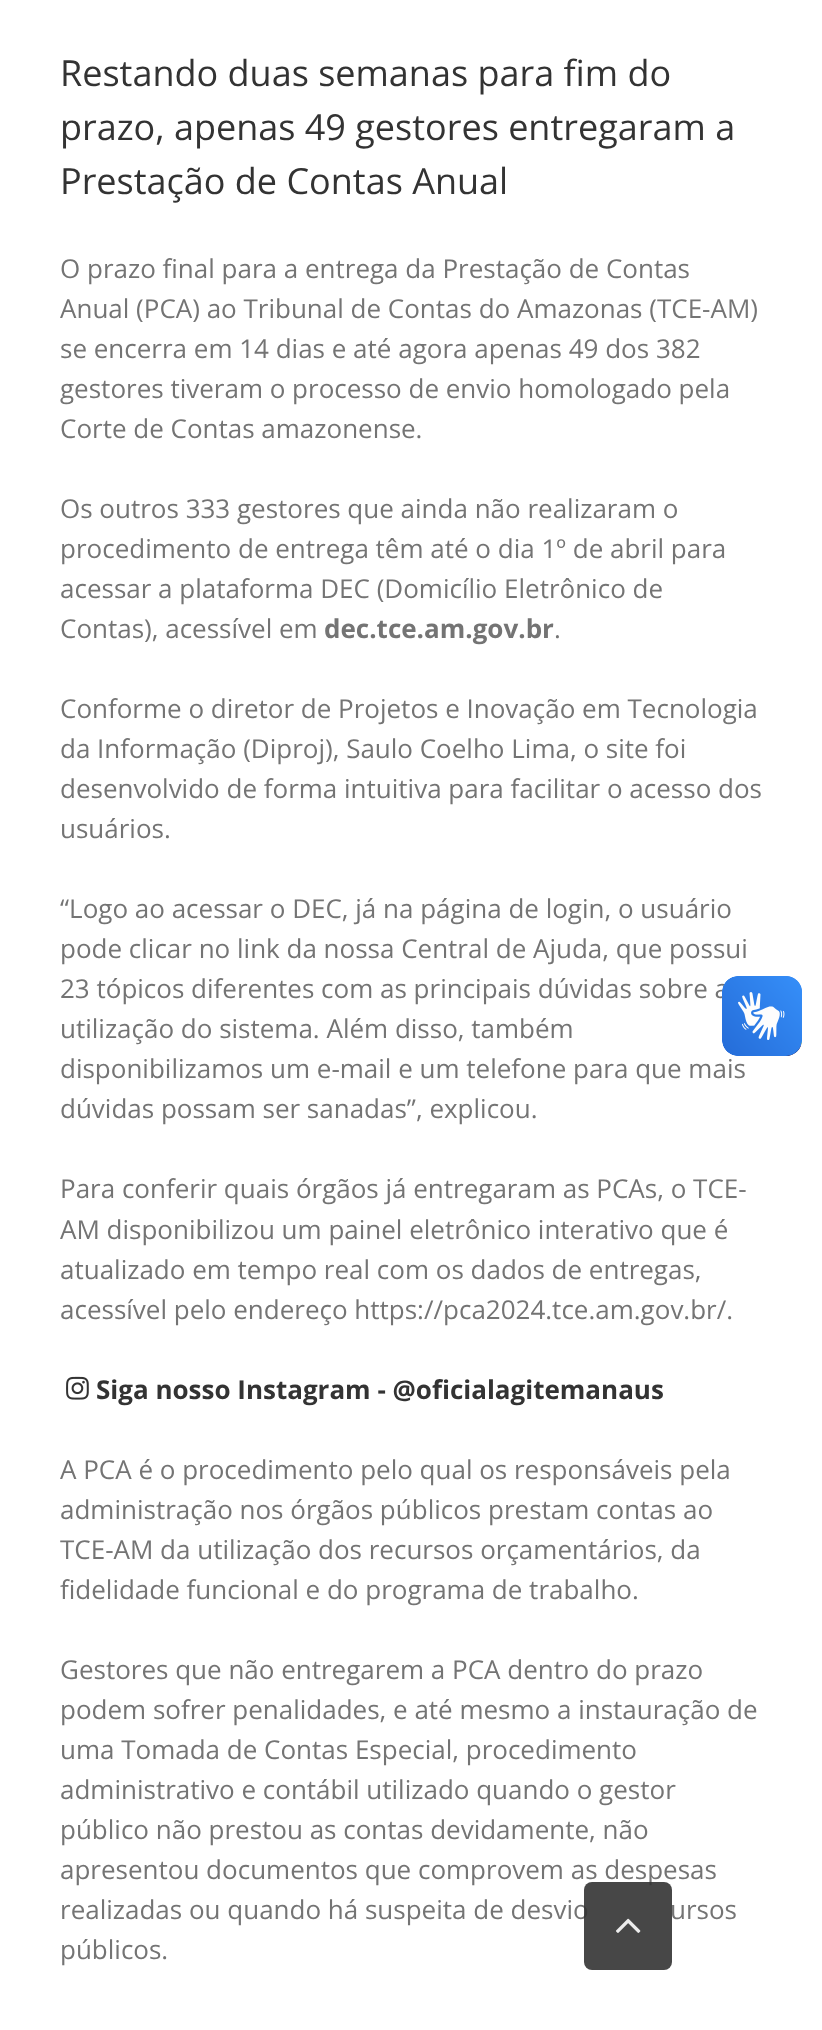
async function draw(canvas) {
	canvas.width = 822;
	canvas.height = 2030;
	const c = canvas.getContext('2d');
	c.miterLimit = 4;
	c.fontKerning = 'normal';
	async function loadImage(src) {
		const img = new Image();
		img.src = src;
		await img.decode();
		return img;
	}

	c.fillStyle = '#fff';
	c.fillRect(0, 0, 822, 2030);
	c.font = '36px Open Sans';
	c.fillStyle = '#333';
	for (const [text, x, y] of [
		['Restando duas semanas para fim do', 60, 86],
		['prazo, apenas 49 gestores entregaram a', 60, 140],
		['Prestação de Contas Anual', 60, 194],
	]) {
		c.fillText(text, x, y);
	}
	c.font = '26px Open Sans';
	c.fillStyle = '#747474';
	for (const [text, x, y] of [
		['O prazo final para a entrega da Prestação de Contas', 60, 278],
		['Anual (PCA) ao Tribunal de Contas do Amazonas (TCE-AM)', 60, 318],
		['se encerra em 14 dias e até agora apenas 49 dos 382', 60, 358],
		['gestores tiveram o processo de envio homologado pela', 60, 398],
		['Corte de Contas amazonense.', 60, 438],
		['Os outros 333 gestores que ainda não realizaram o', 60, 518],
		['procedimento de entrega têm até o dia 1º de abril para', 60, 558],
		['acessar a plataforma DEC (Domicílio Eletrônico de', 60, 598],
		['Contas), acessível em', 60, 638],
	]) {
		c.fillText(text, x, y);
	}
	c.font = 'bold 26px Open Sans';
	c.fillText('dec.tce.am.gov.br', 324, 638);
	c.font = '26px Open Sans';
	for (const [text, x, y] of [
		['.', 554, 638],
		['Conforme o diretor de Projetos e Inovação em Tecnologia', 60, 718],
		['da Informação (Diproj), Saulo Coelho Lima, o site foi', 60, 758],
		['desenvolvido de forma intuitiva para facilitar o acesso dos', 60, 798],
		['usuários.', 60, 838],
		['“Logo ao acessar o DEC, já na página de login, o usuário', 60, 918],
		['pode clicar no link da nossa Central de Ajuda, que possui', 60, 958],
		['23 tópicos diferentes com as principais dúvidas sobre a', 60, 998],
		['utilização do sistema. Além disso, também', 60, 1038],
		['disponibilizamos um e-mail e um telefone para que mais', 60, 1078],
		['dúvidas possam ser sanadas”, explicou.', 60, 1118],
		['Para conferir quais órgãos já entregaram as PCAs, o TCE-', 60, 1198],
		['AM disponibilizou um painel eletrônico interativo que é', 60, 1239],
		['atualizado em tempo real com os dados de entregas,', 60, 1279],
		['acessível pelo endereço https://pca2024.tce.am.gov.br/.', 60, 1319],
	]) {
		c.fillText(text, x, y);
	}
	c.drawImage(await loadImage('img1.png'), 66, 1376, 23, 24);
	c.font = 'bold 26px Open Sans';
	c.fillStyle = '#333';
	c.fillText('Siga nosso Instagram - @oficialagitemanaus', 96, 1399);
	c.font = '26px Open Sans';
	c.fillStyle = '#747474';
	for (const [text, x, y] of [
		['A PCA é o procedimento pelo qual os responsáveis pela', 60, 1479],
		['administração nos órgãos públicos prestam contas ao', 60, 1519],
		['TCE-AM da utilização dos recursos orçamentários, da', 60, 1559],
		['fidelidade funcional e do programa de trabalho.', 60, 1599],
		['Gestores que não entregarem a PCA dentro do prazo', 60, 1679],
		['podem sofrer penalidades, e até mesmo a instauração de', 60, 1719],
		['uma Tomada de Contas Especial, procedimento', 60, 1759],
		['administrativo e contábil utilizado quando o gestor', 60, 1799],
		['público não prestou as contas devidamente, não', 60, 1839],
		['apresentou documentos que comprovem as despesas', 60, 1879],
		['realizadas ou quando há suspeita de desvio', 60, 1919],
		['ursos', 670, 1919],
		['públicos.', 60, 1959],
	]) {
		c.fillText(text, x, y);
	}
	c.drawImage(await loadImage('img2.png'), 722, 976, 80, 80);
	c.drawImage(await loadImage('img3.png'), 722, 976, 80, 80);
	c.fillStyle = '#333333e6';
	c.beginPath();
	c.roundRect(584, 1882, 88, 88, 8);
	c.fill();
	c.drawImage(await loadImage('img4.png'), 616, 1918, 25, 15);
}

draw(document.querySelector('canvas'));
